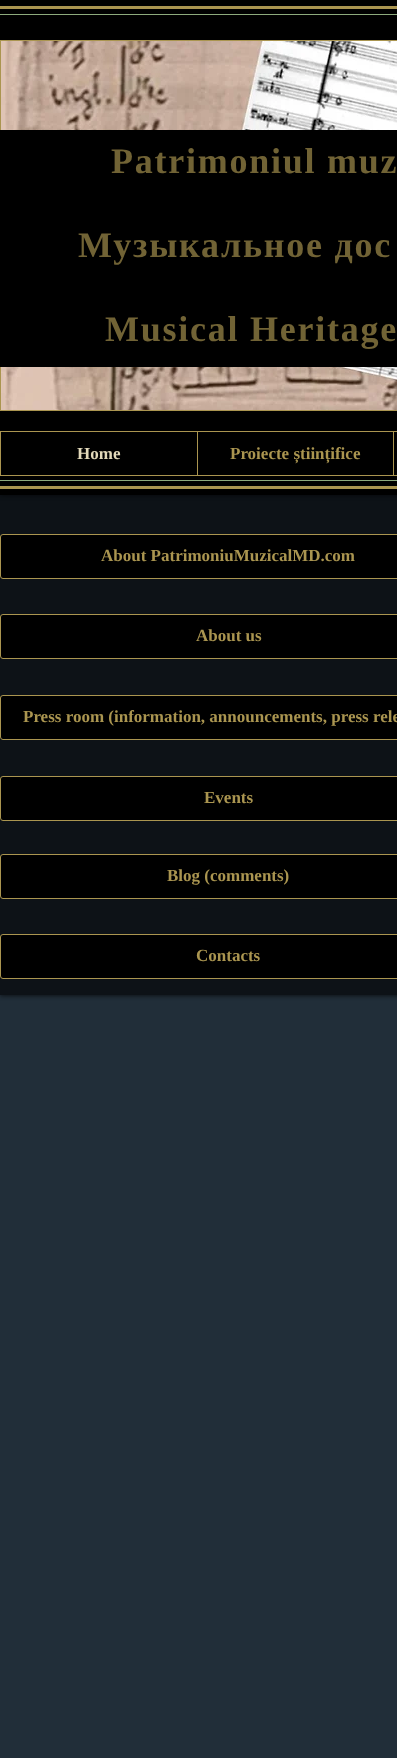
async function draw(canvas) {
	canvas.width = 397;
	canvas.height = 1758;
	const c = canvas.getContext('2d');
	c.miterLimit = 4;
	c.fontKerning = 'normal';
	async function loadImage(src) {
		const img = new Image();
		img.src = src;
		await img.decode();
		return img;
	}

	c.fillStyle = '#212e39';
	c.fillRect(0, 0, 397, 1758);
	c.fillStyle = '#0d1217';
	c.fillRect(0, 495, 397, 500);
	c.fillStyle = '#000000b3';
	c.filter = 'blur(2.5px)';
	c.beginPath();
	c.rect(0, 0, 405, 495);
	c.fill();
	c.filter = 'none';
	for (const [x, y, w, h, color] of [
		[0, 0, 397, 495, '#000'],
		[0, 6, 397, 3, '#aa9550'],
		[0, 486, 397, 3, '#aa9550'],
		[0, 14, 397, 1, '#8daa7d'],
		[0, 480, 397, 1, '#8daa7d'],
		[0, 40, 397, 371, '#aa9550'],
	]) {
		c.fillStyle = color;
		c.fillRect(x, y, w, h);
	}
	c.drawImage(await loadImage('img1.png'), 1, 41, 396, 369);
	c.fillStyle = '#000';
	c.fillRect(0, 130, 397, 237);
	c.letterSpacing = '1.75px';
	c.font = 'bold 36px Liberation Serif';
	c.fillStyle = '#716335';
	for (const [text, x, y] of [
		['Patrimoniul muz', 111, 173],
		['Музыкальное дос', 78, 257],
		['Musical Heritage', 105, 341],
	]) {
		c.fillText(text, x, y);
	}
	c.strokeStyle = '#aa9550';
	c.strokeRect(0.5, 431.5, 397, 44);
	c.letterSpacing = '0px';
	c.font = 'bold 17px Liberation Serif';
	c.fillStyle = '#e2d9ba';
	c.fillText('Home', 77, 459);
	c.fillStyle = '#aa9550';
	c.fillRect(197, 432, 1, 43);
	c.fillText('Proiecte științifice', 230, 459);
	c.fillRect(393, 432, 1, 43);
	c.save();
	c.beginPath();
	c.moveTo(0, 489);
	c.lineTo(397, 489);
	c.lineTo(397, 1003);
	c.lineTo(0, 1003);
	c.closePath();
	c.moveTo(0, 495);
	c.lineTo(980, 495);
	c.lineTo(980, 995);
	c.lineTo(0, 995);
	c.closePath();
	c.clip('evenodd');
	c.fillStyle = '#00000099';
	c.filter = 'blur(2px)';
	c.beginPath();
	c.rect(0, 496, 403, 500);
	c.fill();
	c.filter = 'none';
	c.restore();
	c.fillStyle = '#000';
	c.beginPath();
	c.roundRect(0.5, 534.5, 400, 44, 2.5);
	c.fill();
	c.stroke();
	c.fillStyle = '#aa9550';
	c.fillText('About PatrimoniuMuzicalMD.com', 101, 561);
	c.fillStyle = '#000';
	c.beginPath();
	c.roundRect(0.5, 614.5, 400, 44, 2.5);
	c.fill();
	c.stroke();
	c.fillStyle = '#aa9550';
	c.fillText('About us', 196, 641);
	c.fillStyle = '#000';
	c.beginPath();
	c.roundRect(0.5, 695.5, 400, 44, 2.5);
	c.fill();
	c.stroke();
	c.fillStyle = '#aa9550';
	c.fillText('Press room (information, announcements, press rele', 23, 722);
	c.fillStyle = '#000';
	c.beginPath();
	c.roundRect(0.5, 776.5, 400, 44, 2.5);
	c.fill();
	c.stroke();
	c.fillStyle = '#aa9550';
	c.fillText('Events', 204, 803);
	c.fillStyle = '#000';
	c.beginPath();
	c.roundRect(0.5, 854.5, 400, 44, 2.5);
	c.fill();
	c.stroke();
	c.fillStyle = '#aa9550';
	c.fillText('Blog (comments)', 167, 881);
	c.fillStyle = '#000';
	c.beginPath();
	c.roundRect(0.5, 934.5, 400, 44, 2.5);
	c.fill();
	c.stroke();
	c.fillStyle = '#aa9550';
	c.fillText('Contacts', 196, 961);
}

draw(document.querySelector('canvas'));
